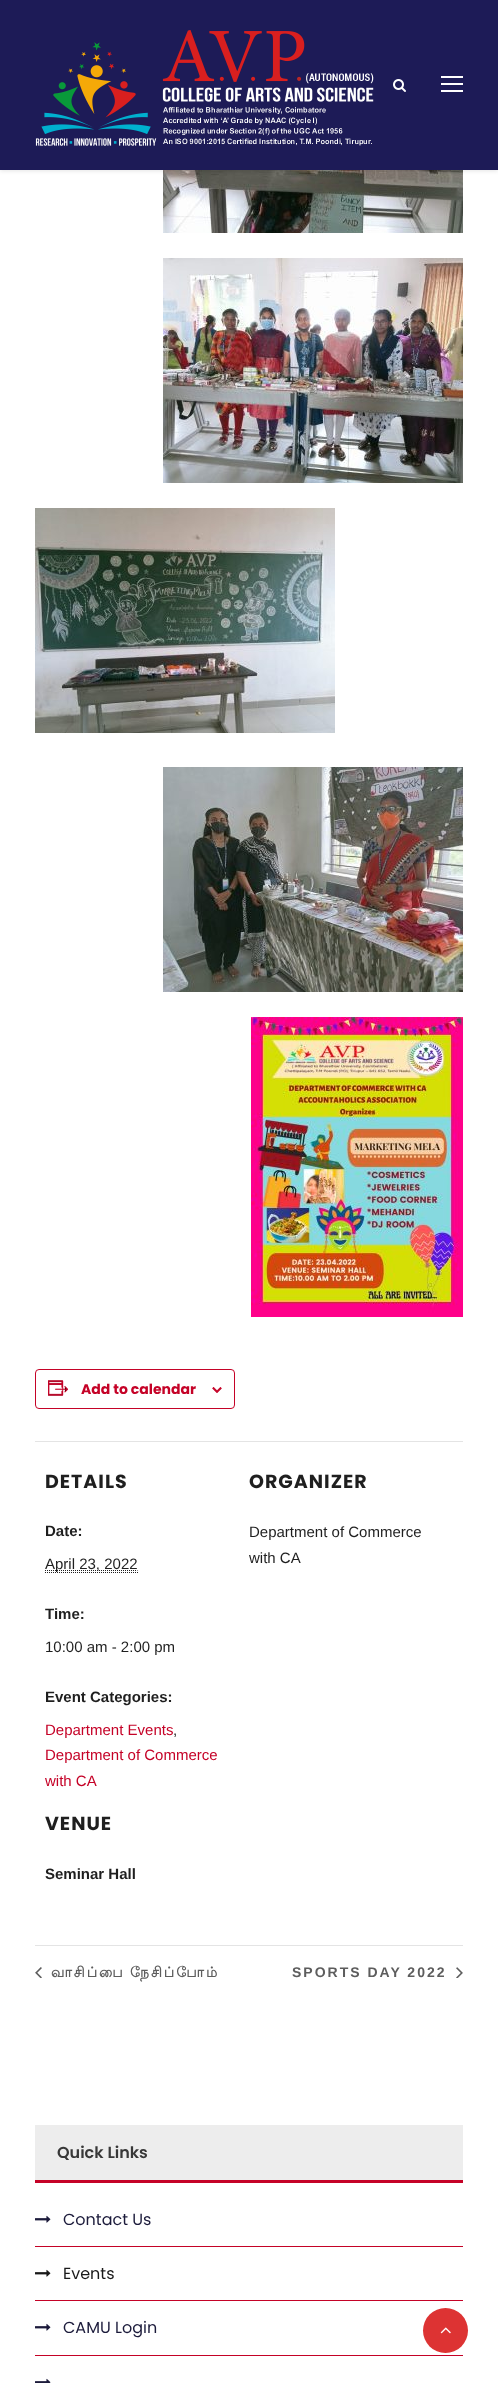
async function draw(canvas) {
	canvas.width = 498;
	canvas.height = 2383;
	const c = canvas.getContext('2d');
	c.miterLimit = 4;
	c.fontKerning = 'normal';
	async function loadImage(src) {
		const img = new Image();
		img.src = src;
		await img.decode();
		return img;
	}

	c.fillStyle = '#fff';
	c.fillRect(0, 0, 498, 2383);
	c.drawImage(await loadImage('img3.png'), 163, 170, 300, 63);
	c.fillStyle = '#0000001a';
	c.filter = 'blur(2px)';
	c.beginPath();
	c.rect(0, 1, 498, 170);
	c.fill();
	c.filter = 'none';
	c.fillStyle = '#1d1b57';
	c.fillRect(0, 0, 498, 170);
	c.drawImage(await loadImage('img1.png'), 35, 30, 339, 116);
	c.drawImage(await loadImage('img2.png'), 393, 79, 13, 13);
	for (const [x, y, w, h, color] of [
		[441, 76, 22, 2, '#fff'],
		[441, 83, 22, 2, '#fff'],
		[441, 90, 22, 2, '#fff'],
	]) {
		c.fillStyle = color;
		c.fillRect(x, y, w, h);
	}
	c.drawImage(await loadImage('img4.png'), 163, 258, 300, 225);
	c.drawImage(await loadImage('img5.png'), 35, 508, 300, 225);
	c.drawImage(await loadImage('img6.png'), 163, 767, 300, 225);
	c.drawImage(await loadImage('img7.png'), 251, 1017, 212, 300);
	c.beginPath();
	c.roundRect(35.5, 1369.5, 199, 39, 3.5);
	c.strokeStyle = '#c50227';
	c.stroke();
	c.drawImage(await loadImage('img8.png'), 48, 1380, 21, 16);
	c.font = 'bold 14px Poppins';
	c.fillStyle = '#c50227';
	c.fillText('Add to calendar', 81, 1394);
	c.drawImage(await loadImage('img9.png'), 212, 1387, 10, 6);
	c.fillStyle = '#e4e4e4';
	c.fillRect(35, 1441, 428, 1);
	c.letterSpacing = '1px';
	c.font = 'bold 19px Poppins';
	c.fillStyle = '#1f1f1f';
	c.fillText('DETAILS', 45, 1488);
	c.letterSpacing = '0px';
	c.font = 'bold 15px Liberation Sans';
	c.fillText('Date:', 45, 1536);
	c.beginPath();
	c.moveTo(45, 1572.5);
	c.lineTo(138, 1572.5);
	c.strokeStyle = '#1f1f1f';
	c.setLineDash([1, 1]);
	c.stroke();
	c.beginPath();
	c.moveTo(45, 1570.5);
	c.lineTo(137.5, 1570.5);
	c.stroke();
	c.font = '15px Liberation Sans';
	c.fillText('April 23, 2022', 45, 1569);
	c.font = 'bold 15px Liberation Sans';
	c.fillText('Time:', 45, 1619);
	c.font = '15px Liberation Sans';
	c.fillText('10:00 am - 2:00 pm', 45, 1652);
	c.font = 'bold 15px Liberation Sans';
	c.fillText('Event Categories:', 45, 1702);
	c.font = '15px Liberation Sans';
	c.fillStyle = '#c50227';
	c.fillText('Department Events', 45, 1735);
	c.fillStyle = '#1f1f1f';
	c.fillText(',', 173, 1735);
	c.fillStyle = '#c50227';
	c.fillText('Department of Commerce', 45, 1760);
	c.fillText('with CA', 45, 1786);
	c.letterSpacing = '1px';
	c.font = 'bold 19px Poppins';
	c.fillStyle = '#1f1f1f';
	c.fillText('ORGANIZER', 249, 1488);
	c.letterSpacing = '0px';
	c.font = '15px Liberation Sans';
	c.fillText('Department of Commerce', 249, 1537);
	c.fillText('with CA', 249, 1563);
	c.letterSpacing = '1px';
	c.font = 'bold 19px Poppins';
	c.fillText('VENUE', 45, 1830);
	c.letterSpacing = '0px';
	c.font = 'bold 15px Liberation Sans';
	c.fillText('Seminar Hall', 45, 1879);
	c.fillStyle = '#e4e4e4';
	c.fillRect(35, 1945, 428, 1);
	c.drawImage(await loadImage('img10.png'), 35, 1967, 7, 11);
	c.letterSpacing = '2px';
	c.wordSpacing = '-1px';
	c.font = 'bold 14px Lohit Tamil';
	c.fillStyle = '#5d5d5d';
	c.fillText('வாசிப்பை நேசிப்போம்', 51, 1977);
	c.wordSpacing = '0px';
	c.font = 'bold 14px Liberation Sans';
	c.fillText('SPORTS DAY 2022', 292, 1977);
	c.drawImage(await loadImage('img11.png'), 456, 1967, 7, 11);
	c.fillStyle = '#ededed';
	c.fillRect(35, 2125, 428, 55);
	c.fillStyle = '#c50227';
	c.fillRect(35, 2180, 428, 3);
	c.letterSpacing = '0px';
	c.font = '600 16px Poppins';
	c.fillStyle = '#383838';
	c.fillText('Quick Links', 57, 2158);
	c.fillStyle = '#c50227';
	c.fillRect(35, 2246, 428, 1);
	c.drawImage(await loadImage('img12.png'), 35, 2215, 16, 8);
	c.font = '16px Poppins';
	c.fillStyle = '#1c1b3b';
	c.fillText('Contact Us', 63, 2225);
	c.fillStyle = '#c50227';
	c.fillRect(35, 2300, 428, 1);
	c.drawImage(await loadImage('img13.png'), 35, 2269, 16, 8);
	c.fillStyle = '#191919';
	c.fillText('Events', 63, 2279);
	c.fillStyle = '#c50227';
	c.fillRect(35, 2355, 428, 1);
	c.drawImage(await loadImage('img12.png'), 35, 2323, 16, 8);
	c.fillStyle = '#1c1b3b';
	c.fillText('CAMU Login', 63, 2333);
	c.drawImage(await loadImage('img14.png'), 35, 2378, 16, 5);
	c.fillStyle = '#d33';
	c.beginPath();
	c.arc(445.5, 2330.5, 22.5, 0, 2 * Math.PI);
	c.fill();
	c.drawImage(await loadImage('img15.png'), 440, 2327, 11, 7);
}

draw(document.querySelector('canvas'));
